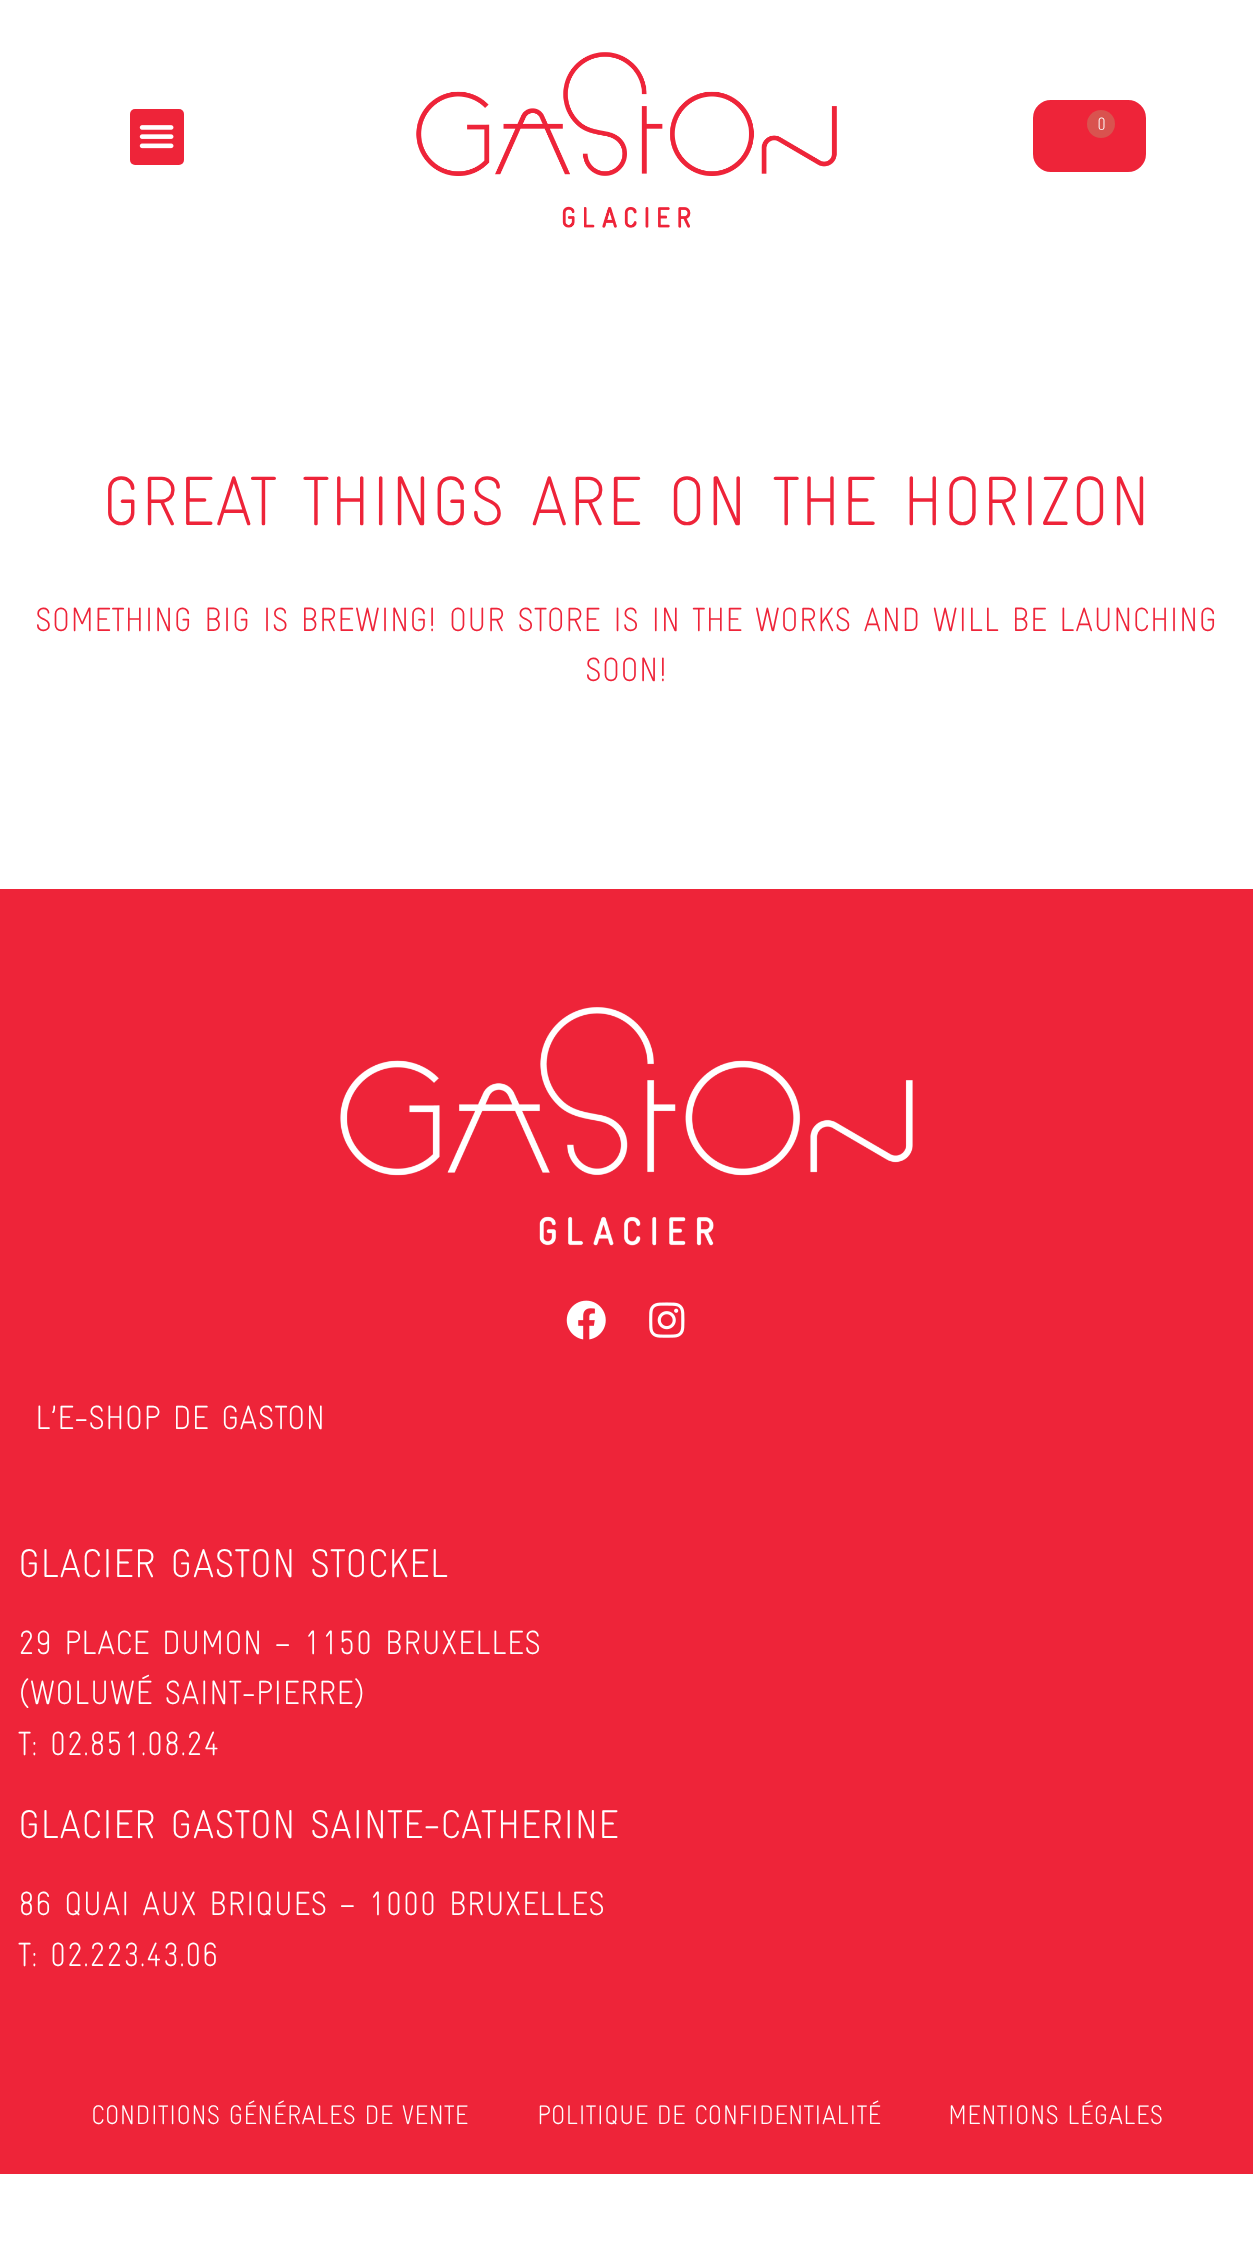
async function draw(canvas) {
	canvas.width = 1253;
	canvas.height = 2259;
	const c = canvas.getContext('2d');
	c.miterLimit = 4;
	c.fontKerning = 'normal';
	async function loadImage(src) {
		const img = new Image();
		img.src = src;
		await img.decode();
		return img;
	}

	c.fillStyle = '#fff';
	c.fillRect(0, 0, 1253, 2259);
	c.fillStyle = '#ee2439';
	c.beginPath();
	c.roundRect(130, 109, 54, 56, 5);
	c.fill();
	c.drawImage(await loadImage('img1.png'), 139, 125, 35, 24);
	c.drawImage(await loadImage('img2.png'), 416, 52, 421, 176);
	c.beginPath();
	c.roundRect(1034, 101, 111, 70, 17);
	c.fill();
	c.strokeStyle = '#ee2439';
	c.lineWidth = 2;
	c.stroke();
	c.fillStyle = '#d9534f';
	c.beginPath();
	c.arc(1101, 124, 14, 0, 2 * Math.PI);
	c.fill();
	c.font = '300 18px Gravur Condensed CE';
	c.fillStyle = '#fff';
	c.fillText('0', 1097, 130);
	c.font = '300 70px Gravur Condensed CE';
	c.fillStyle = '#ee2439';
	c.fillText('GREAT THINGS ARE ON THE HORIZON', 102, 525);
	c.font = '300 33.6px Gravur Condensed CE';
	c.fillText('SOMETHING BIG IS BREWING! OUR STORE IS IN THE WORKS AND WILL BE LAUNCHING', 35, 631);
	c.fillText('SOON!', 585, 681);
	c.fillRect(0, 889, 1253, 1285);
	c.drawImage(await loadImage('img3.png'), 340, 1007, 573, 239);
	c.drawImage(await loadImage('img4.png'), 566, 1300, 40, 40);
	c.drawImage(await loadImage('img5.png'), 649, 1302, 36, 36);
	c.fillStyle = '#fff';
	c.fillText('L’E-SHOP DE GASTON', 35, 1429);
	c.font = '300 40.3px Gravur Condensed CE';
	c.fillText('GLACIER GASTON STOCKEL', 18, 1577);
	c.font = '300 33.6px Gravur Condensed CE';
	for (const [text, x, y] of [
		['29 PLACE DUMON – 1150 BRUXELLES', 18, 1654],
		['(WOLUWÉ SAINT-PIERRE)', 18, 1704],
		['T: 02.851.08.24', 18, 1755],
	]) {
		c.fillText(text, x, y);
	}
	c.font = '300 40.3px Gravur Condensed CE';
	c.fillText('GLACIER GASTON SAINTE-CATHERINE', 18, 1838);
	c.font = '300 33.6px Gravur Condensed CE';
	c.fillText('86 QUAI AUX BRIQUES – 1000 BRUXELLES', 18, 1915);
	c.fillText('T: 02.223.43.06', 18, 1966);
	c.wordSpacing = '-1.5px';
	c.font = '300 26.9px Gravur Condensed CE';
	for (const [text, x, y] of [
		['CONDITIONS GÉNÉRALES DE VENTE', 91, 2124],
		['POLITIQUE DE CONFIDENTIALITÉ', 537, 2124],
		['MENTIONS LÉGALES', 948, 2124],
	]) {
		c.fillText(text, x, y);
	}
}

draw(document.querySelector('canvas'));
